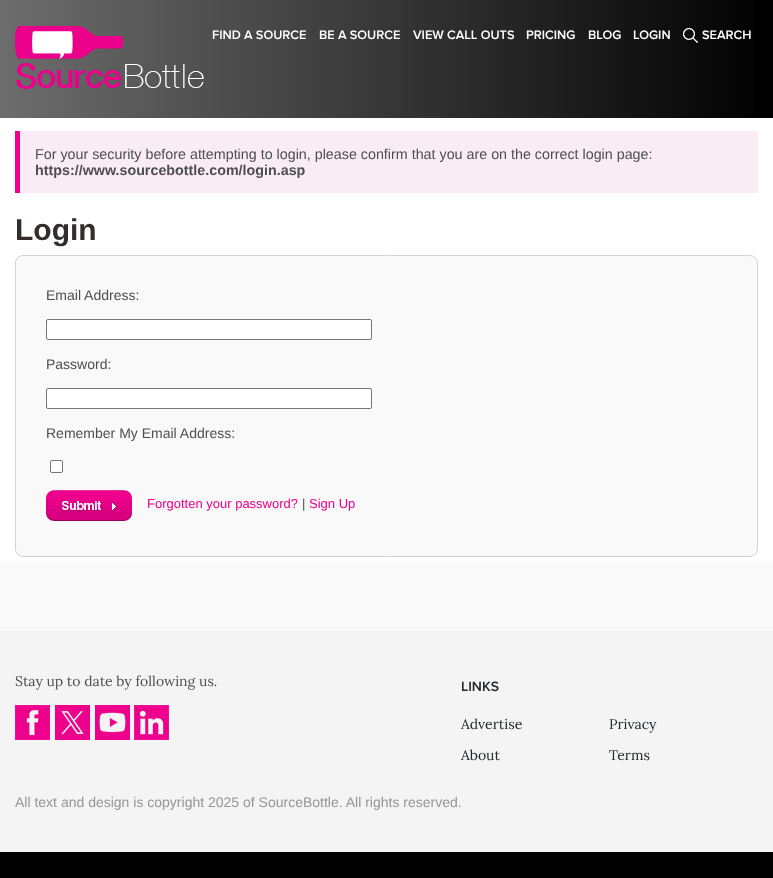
async function draw(canvas) {
	canvas.width = 773;
	canvas.height = 878;
	const c = canvas.getContext('2d');
	c.miterLimit = 4;
	c.fontKerning = 'normal';
	async function loadImage(src) {
		const img = new Image();
		img.src = src;
		await img.decode();
		return img;
	}
	let gradient;

	c.fillStyle = '#000';
	c.fillRect(0, 0, 773, 878);
	gradient = c.createLinearGradient(0, 59, 773, 59);
	gradient.addColorStop(0, '#6d6d6d');
	gradient.addColorStop(1, '#000');
	c.fillStyle = gradient;
	c.fillRect(0, 0, 755, 118);
	c.drawImage(await loadImage('img1.png'), 15, 26, 189, 63);
	c.font = '600 12.75px Proxima Nova';
	c.fillStyle = '#fff';
	for (const [text, x, y] of [
		['FIND A SOURCE', 212, 39],
		['BE A SOURCE', 319, 39],
		['VIEW CALL OUTS', 413, 39],
		['PRICING', 526, 39],
		['BLOG', 588, 39],
		['LOGIN', 633, 39],
	]) {
		c.fillText(text, x, y);
	}
	c.drawImage(await loadImage('img2.png'), 683, 28, 15, 15);
	c.fillText('SEARCH', 702, 39);
	for (const [x, y, w, h, color] of [
		[0, 561, 773, 70, '#f9f9f9'],
		[0, 118, 773, 443, '#fff'],
		[20, 131, 738, 62, '#f9ecf4'],
		[15, 131, 5, 62, '#f20089'],
	]) {
		c.fillStyle = color;
		c.fillRect(x, y, w, h);
	}
	c.font = '14.3px Liberation Sans';
	c.fillStyle = '#4e4e4e';
	c.fillText('For your security before attempting to login, please confirm that you are on the correct login page:', 35, 159);
	c.font = 'bold 14.3px Liberation Sans';
	c.fillText('https://www.sourcebottle.com/login.asp', 35, 175);
	c.font = 'bold 30px Liberation Sans';
	c.fillStyle = '#332d2d';
	c.fillText('Login', 15, 240);
	c.fillStyle = '#f9f9f9';
	c.beginPath();
	c.roundRect(15.5, 255.5, 742, 301, 7.5);
	c.fill();
	c.strokeStyle = '#d3d3d3';
	c.stroke();
	c.font = '14px Liberation Sans';
	c.fillStyle = '#4e4e4e';
	c.fillText('Email Address:', 46, 300);
	c.fillStyle = '#fff';
	c.beginPath();
	c.roundRect(46.5, 319.5, 325, 20, 1.5);
	c.fill();
	c.strokeStyle = '#767676';
	c.stroke();
	c.fillStyle = '#4e4e4e';
	c.fillText('Password:', 46, 369);
	c.fillStyle = '#fff';
	c.beginPath();
	c.roundRect(46.5, 388.5, 325, 20, 1.5);
	c.fill();
	c.stroke();
	c.fillStyle = '#4e4e4e';
	c.fillText('Remember My Email Address:', 46, 438);
	c.fillStyle = '#fff';
	c.beginPath();
	c.roundRect(50.5, 460.5, 12, 12, 1.5);
	c.fill();
	c.stroke();
	c.drawImage(await loadImage('img3.png'), 46, 490, 86, 31);
	c.font = '13px Liberation Sans';
	c.fillStyle = '#ec008c';
	c.fillText('Forgotten your password?', 147, 508);
	c.fillStyle = '#4e4e4e';
	c.fillText('|', 302, 508);
	c.fillStyle = '#ec008c';
	c.fillText('Sign Up', 309, 508);
	c.fillStyle = '#f4f4f4';
	c.fillRect(0, 631, 773, 221);
	c.font = '14px Lora';
	c.fillStyle = '#4e4e4e';
	c.fillText('Stay up to date by following us.', 15, 686);
	c.drawImage(await loadImage('img4.png'), 15, 705, 35, 35);
	c.drawImage(await loadImage('img5.png'), 55, 705, 35, 35);
	c.drawImage(await loadImage('img6.png'), 95, 705, 35, 35);
	c.drawImage(await loadImage('img7.png'), 134, 705, 35, 35);
	c.font = '600 14px Proxima Nova';
	c.fillStyle = '#21282e';
	c.fillText('LINKS', 461, 691);
	c.font = '14px Lora';
	for (const [text, x, y] of [
		['Advertise', 461, 729],
		['About', 461, 760],
		['Privacy', 609, 729],
		['Terms', 609, 760],
	]) {
		c.fillText(text, x, y);
	}
	c.font = '14px Liberation Sans';
	c.fillStyle = '#959595';
	c.fillText('All text and design is copyright 2025 of SourceBottle. All rights reserved.', 15, 807);
}

draw(document.querySelector('canvas'));
